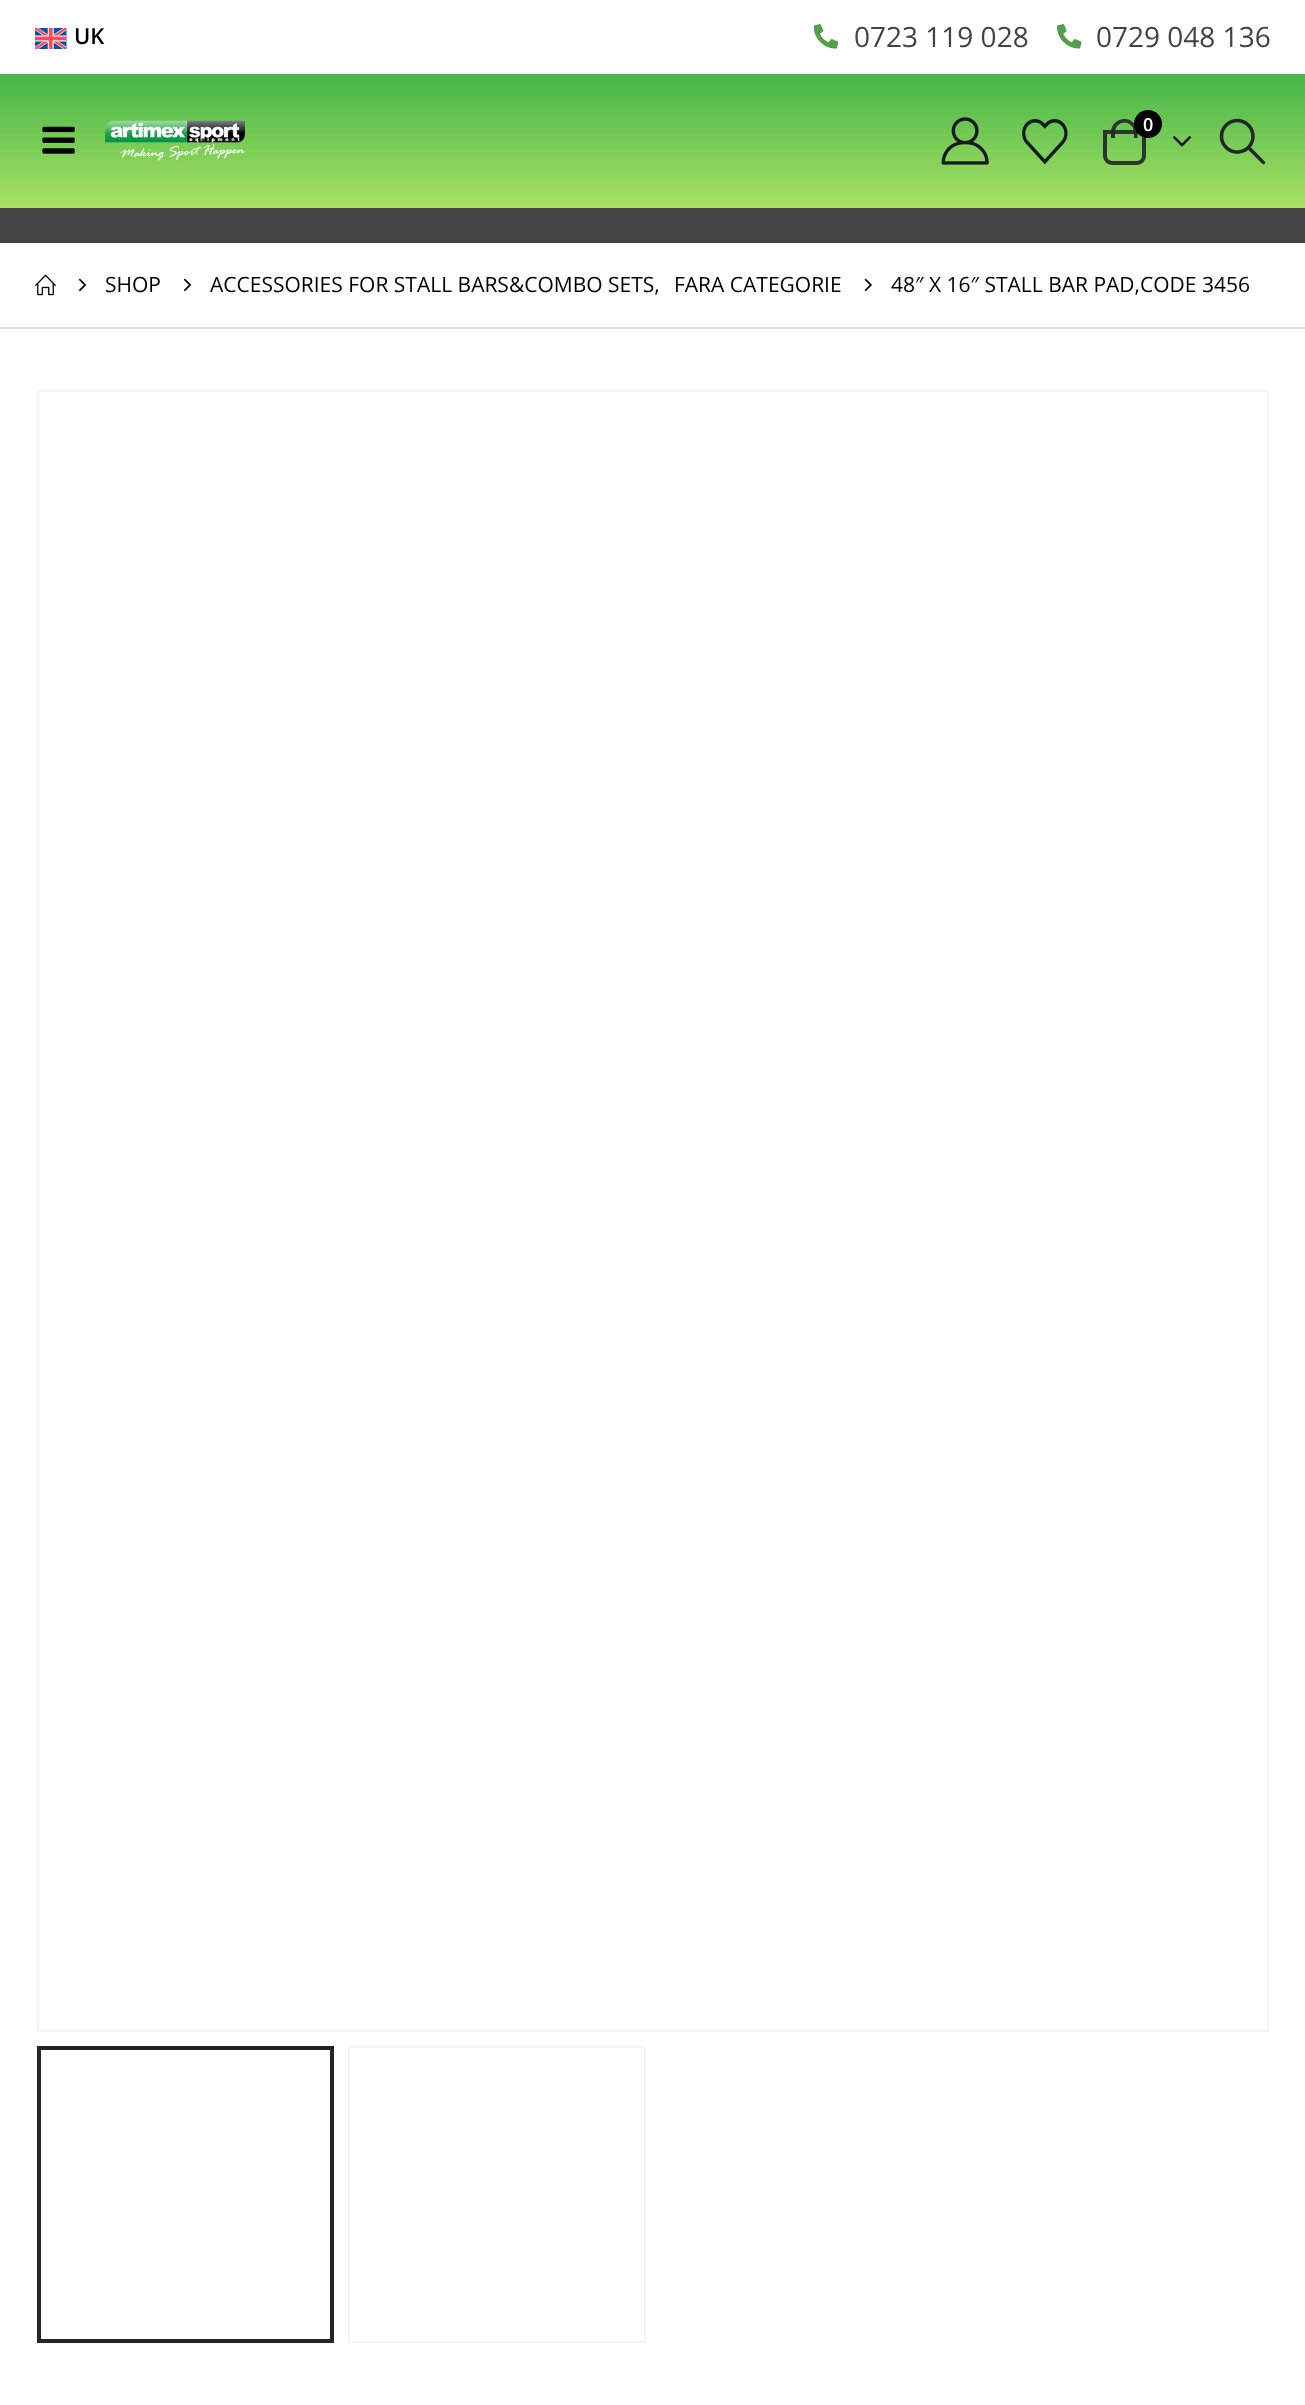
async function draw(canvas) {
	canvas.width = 1305;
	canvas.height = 2405;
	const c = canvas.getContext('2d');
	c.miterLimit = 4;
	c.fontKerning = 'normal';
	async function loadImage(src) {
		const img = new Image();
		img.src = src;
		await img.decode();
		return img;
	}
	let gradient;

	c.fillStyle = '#fff';
	c.fillRect(0, 0, 1305, 2405);
	c.drawImage(await loadImage('img1.png'), 35, 28, 32, 21);
	c.font = '600 22px Open Sans';
	c.fillStyle = '#000';
	c.fillText('UK', 74, 44);
	c.drawImage(await loadImage('img2.png'), 814, 24, 25, 25);
	c.font = '28px Open Sans';
	c.fillStyle = '#414345';
	c.fillText('0723 119 028', 854, 47);
	c.drawImage(await loadImage('img3.png'), 1057, 24, 25, 25);
	c.fillText('0729 048 136', 1096, 47);
	gradient = c.createLinearGradient(653, 73, 653, 208);
	gradient.addColorStop(0, '#45b649');
	gradient.addColorStop(1, '#a8e063');
	c.fillStyle = gradient;
	c.fillRect(0, 74, 1305, 134);
	c.drawImage(await loadImage('img4.png'), 42, 126, 33, 28);
	c.drawImage(await loadImage('img5.png'), 105, 120, 140, 41);
	c.drawImage(await loadImage('img6.png'), 941, 117, 48, 48);
	c.drawImage(await loadImage('img7.png'), 1022, 119, 46, 46);
	c.beginPath();
	c.roundRect(1105, 132, 39, 31, [0, 0, 7, 7]);
	c.strokeStyle = '#222529e6';
	c.lineWidth = 4;
	c.stroke();
	c.fillStyle = '#222529e6';
	c.beginPath();
	c.moveTo(1124.5, 119);
	c.bezierCurveTo(1131.5, 119, 1137.5, 125, 1137.5, 132);
	c.lineTo(1137.5, 138);
	c.lineTo(1111, 138);
	c.lineTo(1111, 132);
	c.bezierCurveTo(1111, 125, 1117, 119, 1124.5, 119);
	c.closePath();
	c.moveTo(1124.5, 122.5);
	c.bezierCurveTo(1129.5, 122.5, 1134, 127, 1134, 132);
	c.lineTo(1134, 138);
	c.lineTo(1115, 138);
	c.lineTo(1115, 132);
	c.bezierCurveTo(1115, 127, 1119, 122.5, 1124.5, 122.5);
	c.closePath();
	c.fill('evenodd');
	c.fillStyle = '#000';
	c.beginPath();
	c.arc(1148, 124, 14, 0, 2 * Math.PI);
	c.fill();
	c.font = '600 18px Open Sans';
	c.fillStyle = '#fff';
	c.fillText('0', 1143, 131);
	c.drawImage(await loadImage('img8.png'), 1172, 136, 20, 11);
	c.drawImage(await loadImage('img9.png'), 1219, 118, 47, 47);
	c.fillStyle = '#414345';
	c.fillRect(0, 208, 1305, 35);
	c.fillStyle = '#dfdfdf';
	c.fillRect(0, 327, 1305, 2);
	c.drawImage(await loadImage('img10.png'), 35, 274, 21, 22);
	c.drawImage(await loadImage('img11.png'), 78, 278, 9, 14);
	c.font = '21px Open Sans';
	c.fillStyle = '#000';
	c.fillText('SHOP', 105, 292);
	c.drawImage(await loadImage('img11.png'), 183, 278, 9, 14);
	c.fillText('ACCESSORIES FOR STALL BARS&COMBO SETS,', 210, 292);
	c.fillText('FARA CATEGORIE', 674, 292);
	c.drawImage(await loadImage('img12.png'), 864, 278, 8, 14);
	c.fillText('48″ X 16″ STALL BAR PAD,CODE 3456', 891, 292);
	c.strokeStyle = '#f4f4f4';
	c.lineWidth = 2;
	c.strokeRect(38, 391, 1230, 1640);
	c.strokeStyle = '#222529';
	c.lineWidth = 4;
	c.strokeRect(39, 2048, 293, 293);
	c.strokeStyle = '#f4f4f4';
	c.lineWidth = 2;
	c.strokeRect(349, 2047, 296, 295);
}

draw(document.querySelector('canvas'));
